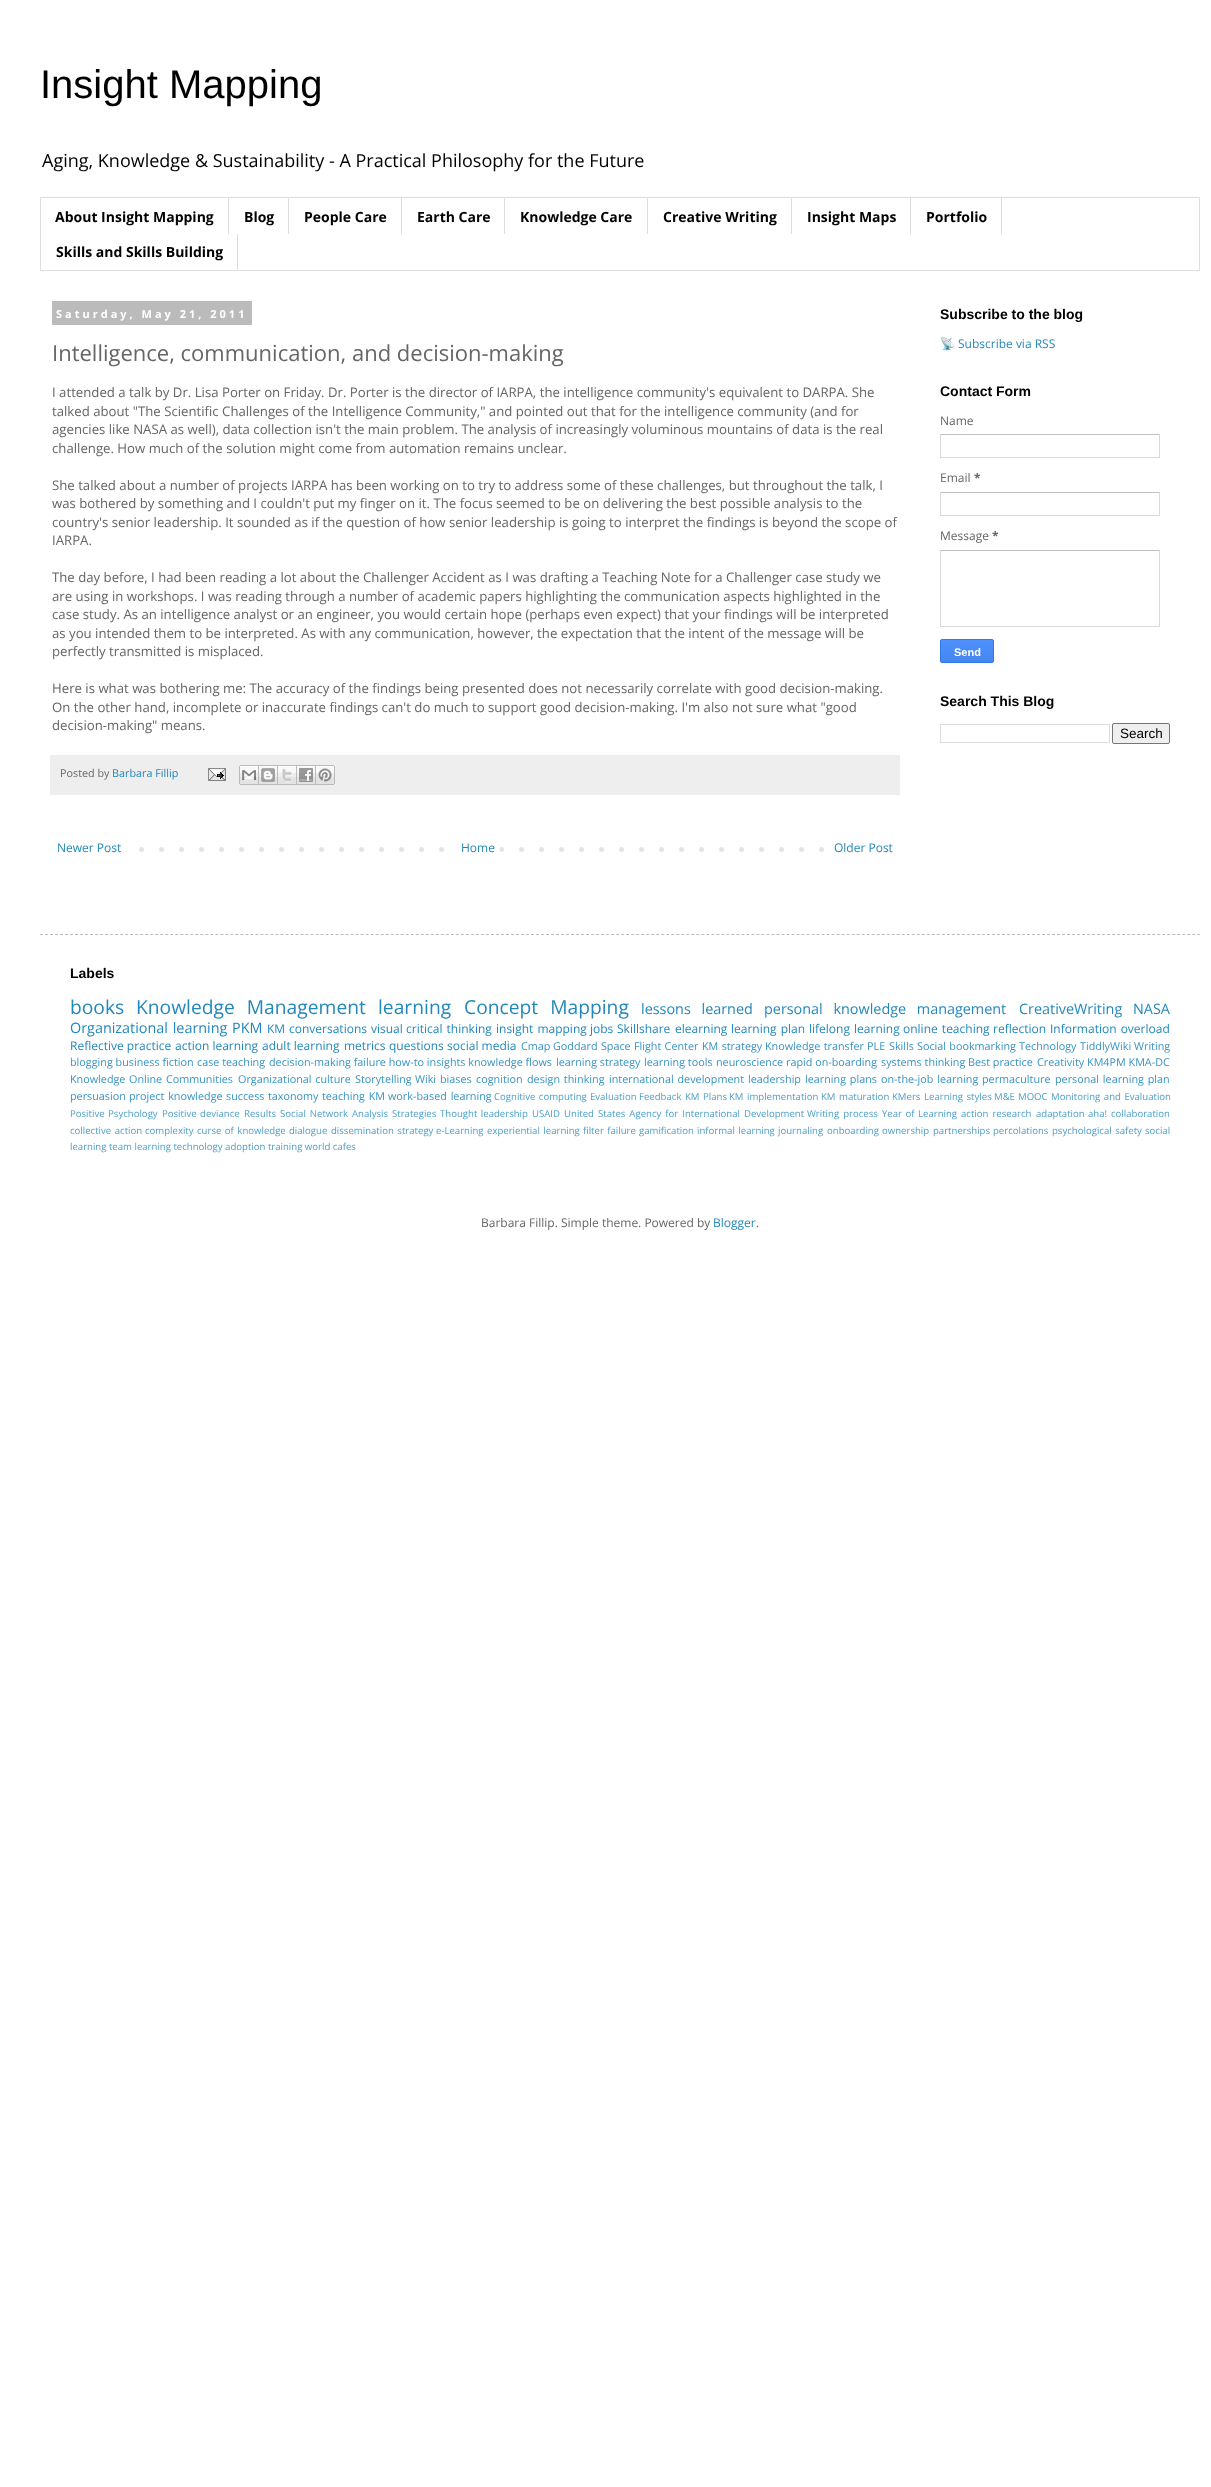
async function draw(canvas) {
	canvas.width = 1211;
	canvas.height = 2487;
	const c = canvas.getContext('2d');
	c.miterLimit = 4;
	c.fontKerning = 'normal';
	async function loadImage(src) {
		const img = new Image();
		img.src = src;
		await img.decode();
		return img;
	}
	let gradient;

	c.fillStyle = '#fff';
	c.fillRect(0, 0, 1211, 2487);
	c.font = '40px Liberation Sans';
	c.fillStyle = '#000';
	c.fillText('Insight Mapping', 40, 98);
	c.font = '18px Open Sans';
	c.fillText('Aging, Knowledge & Sustainability - A Practical Philosophy for the Future', 42, 167);
	c.strokeStyle = '#ddd';
	c.strokeRect(40.5, 197.5, 1159, 73);
	c.fillStyle = '#ddd';
	c.fillRect(228, 198, 1, 36);
	c.font = 'bold 14px Open Sans';
	c.fillStyle = '#000';
	c.fillText('About Insight Mapping', 55, 222);
	c.fillStyle = '#ddd';
	c.fillRect(288, 198, 1, 36);
	c.fillStyle = '#000';
	c.fillText('Blog', 244, 222);
	c.fillStyle = '#ddd';
	c.fillRect(401, 198, 1, 36);
	c.fillStyle = '#000';
	c.fillText('People Care', 304, 222);
	c.fillStyle = '#ddd';
	c.fillRect(504, 198, 1, 36);
	c.fillStyle = '#000';
	c.fillText('Earth Care', 417, 222);
	c.fillStyle = '#ddd';
	c.fillRect(647, 198, 1, 36);
	c.fillStyle = '#000';
	c.fillText('Knowledge Care', 520, 222);
	c.fillStyle = '#ddd';
	c.fillRect(791, 198, 1, 36);
	c.fillStyle = '#000';
	c.fillText('Creative Writing', 663, 222);
	c.fillStyle = '#ddd';
	c.fillRect(910, 198, 1, 36);
	c.fillStyle = '#000';
	c.fillText('Insight Maps', 807, 222);
	c.fillStyle = '#ddd';
	c.fillRect(1001, 198, 1, 36);
	c.fillStyle = '#000';
	c.fillText('Portfolio', 926, 222);
	c.fillStyle = '#ddd';
	c.fillRect(237, 234, 1, 36);
	c.fillStyle = '#000';
	c.fillText('Skills and Skills Building', 56, 257);
	c.fillStyle = '#bbb';
	c.fillRect(52, 301, 200, 24);
	c.letterSpacing = '3px';
	c.font = 'bold 11px Open Sans';
	c.fillStyle = '#fff';
	c.fillText('Saturday, May 21, 2011', 56, 318);
	c.letterSpacing = '0px';
	c.font = '22px Open Sans';
	c.fillStyle = '#666';
	c.fillText('Intelligence, communication, and decision-making', 52, 361);
	c.font = '13.2px Open Sans';
	for (const [text, x, y] of [
		['I attended a talk by Dr. Lisa Porter on Friday. Dr. Porter is the director of IARPA, the intelligence community\'s equivalent to DARPA. She', 52, 397],
		['talked about "The Scientific Challenges of the Intelligence Community," and pointed out that for the intelligence community (and for', 52, 416],
		['agencies like NASA as well), data collection isn\'t the main problem. The analysis of increasingly voluminous mountains of data is the real', 52, 434],
		['challenge. How much of the solution might come from automation remains unclear.', 52, 453],
		['She talked about a number of projects IARPA has been working on to try to address some of these challenges, but throughout the talk, I', 52, 490],
		['was bothered by something and I couldn\'t put my finger on it. The focus seemed to be on delivering the best possible analysis to the', 52, 508],
		['country\'s senior leadership. It sounded as if the question of how senior leadership is going to interpret the findings is beyond the scope of', 52, 527],
		['IARPA.', 52, 545],
		['The day before, I had been reading a lot about the Challenger Accident as I was drafting a Teaching Note for a Challenger case study we', 52, 582],
		['are using in workshops. I was reading through a number of academic papers highlighting the communication aspects highlighted in the', 52, 601],
		['case study. As an intelligence analyst or an engineer, you would certain hope (perhaps even expect) that your findings will be interpreted', 52, 619],
		['as you intended them to be interpreted. As with any communication, however, the expectation that the intent of the message will be', 52, 638],
		['perfectly transmitted is misplaced.', 52, 656],
		['Here is what was bothering me: The accuracy of the findings being presented does not necessarily correlate with good decision-making.', 52, 693],
		['On the other hand, incomplete or inaccurate findings can\'t do much to support good decision-making. I\'m also not sure what "good', 52, 712],
		['decision-making" means.', 52, 730],
	]) {
		c.fillText(text, x, y);
	}
	c.fillStyle = '#eee';
	c.fillRect(50, 755, 850, 40);
	c.font = '10.8px Open Sans';
	c.fillStyle = '#666';
	c.fillText('Posted by', 60, 777);
	c.fillStyle = '#28b';
	c.fillText('Barbara Fillip', 112, 777);
	c.drawImage(await loadImage('img1.png'), 208, 768, 18, 13);
	c.drawImage(await loadImage('img2.png'), 239, 765, 20, 20);
	c.drawImage(await loadImage('img3.png'), 259, 765, 19, 20);
	c.drawImage(await loadImage('img4.png'), 278, 765, 19, 20);
	c.drawImage(await loadImage('img5.png'), 297, 765, 19, 20);
	c.drawImage(await loadImage('img6.png'), 316, 765, 19, 20);
	c.drawImage(await loadImage('img7.png'), 139, 847, 685, 5);
	c.font = '12px Open Sans';
	c.fillText('Newer Post', 57, 852);
	c.fillStyle = '#fff';
	c.fillRect(459, 847, 41, 5);
	c.fillStyle = '#28b';
	c.fillText('Home', 461, 852);
	c.fillText('Older Post', 834, 852);
	c.font = 'bold 14px Liberation Sans';
	c.fillStyle = '#000';
	c.fillText('Subscribe to the blog', 940, 319);
	c.font = '12px Noto Color Emoji';
	c.fillStyle = '#28b';
	c.fillText('📡', 940, 348);
	c.font = '12px Open Sans';
	c.fillText('Subscribe via RSS', 958, 348);
	c.font = 'bold 14px Liberation Sans';
	c.fillStyle = '#000';
	c.fillText('Contact Form', 940, 396);
	c.font = '12px Open Sans';
	c.fillStyle = '#666';
	c.fillText('Name', 940, 425);
	for (const [x, y, w, h, color] of [
		[940, 434, 220, 1, '#c0c0c0'],
		[1159, 434, 1, 24, '#d9d9d9'],
		[940, 457, 220, 1, '#d9d9d9'],
		[940, 434, 1, 24, '#d9d9d9'],
	]) {
		c.fillStyle = color;
		c.fillRect(x, y, w, h);
	}
	c.fillStyle = '#666';
	c.fillText('Email', 940, 482);
	c.font = 'bold 12px Open Sans';
	c.fillText('*', 974, 482);
	for (const [x, y, w, h, color] of [
		[940, 492, 220, 1, '#c0c0c0'],
		[1159, 492, 1, 24, '#d9d9d9'],
		[940, 515, 220, 1, '#d9d9d9'],
		[940, 492, 1, 24, '#d9d9d9'],
	]) {
		c.fillStyle = color;
		c.fillRect(x, y, w, h);
	}
	c.font = '12px Open Sans';
	c.fillStyle = '#666';
	c.fillText('Message', 940, 540);
	c.font = 'bold 12px Open Sans';
	c.fillText('*', 992, 540);
	for (const [x, y, w, h, color] of [
		[940, 550, 220, 1, '#c0c0c0'],
		[1159, 550, 1, 77, '#d9d9d9'],
		[940, 626, 220, 1, '#d9d9d9'],
		[940, 550, 1, 77, '#d9d9d9'],
	]) {
		c.fillStyle = color;
		c.fillRect(x, y, w, h);
	}
	c.save();
	c.beginPath();
	c.roundRect(940, 639, 54, 24, 2);
	c.clip();
	gradient = c.createLinearGradient(967, 640, 967, 662);
	gradient.addColorStop(0, '#4d90fe');
	gradient.addColorStop(1, '#4787ed');
	c.fillStyle = gradient;
	c.fillRect(940, 640, 54, 22);
	c.restore();
	c.beginPath();
	c.roundRect(940.5, 639.5, 53, 23, 1.5);
	c.strokeStyle = '#3079ed';
	c.stroke();
	c.font = 'bold 11px Liberation Sans';
	c.fillStyle = '#fff';
	c.fillText('Send', 954, 656);
	c.font = 'bold 14px Liberation Sans';
	c.fillStyle = '#000';
	c.fillText('Search This Blog', 940, 706);
	c.strokeStyle = '#ddd';
	c.strokeRect(940.5, 724.5, 169, 18);
	c.fillStyle = '#efefef';
	c.beginPath();
	c.roundRect(1112.5, 723.5, 57, 20, 1.5);
	c.fill();
	c.strokeStyle = '#767676';
	c.stroke();
	c.font = '13.5px Liberation Sans';
	c.fillStyle = '#000';
	c.fillText('Search', 1120, 738);
	c.beginPath();
	c.moveTo(40, 934.5);
	c.lineTo(1200, 934.5);
	c.strokeStyle = '#bbb';
	c.setLineDash([3, 2.01]);
	c.stroke();
	c.font = 'bold 14px Liberation Sans';
	c.fillText('Labels', 70, 978);
	c.font = '19.25px Open Sans';
	c.fillStyle = '#28b';
	c.fillText('books', 70, 1014);
	c.wordSpacing = '7px';
	c.fillText('Knowledge Management', 136, 1014);
	c.wordSpacing = '0px';
	c.fillText('learning', 378, 1014);
	c.wordSpacing = '7px';
	c.fillText('Concept Mapping', 464, 1014);
	c.font = '14.4px Open Sans';
	c.fillText('lessons learned', 641, 1014);
	c.fillText('personal knowledge management', 764, 1014);
	c.wordSpacing = '0px';
	c.fillText('CreativeWriting', 1019, 1014);
	c.fillText('NASA', 1133, 1014);
	c.wordSpacing = '1px';
	c.fillText('Organizational learning', 70, 1033);
	c.wordSpacing = '0px';
	c.fillText('PKM', 232, 1033);
	c.font = '12px Open Sans';
	for (const [text, x, y] of [
		['KM', 267, 1033],
		['conversations', 289, 1033],
		['visual', 371, 1033],
	]) {
		c.fillText(text, x, y);
	}
	c.wordSpacing = '1px';
	c.fillText('critical thinking', 406, 1033);
	c.fillText('insight mapping', 496, 1033);
	c.wordSpacing = '0px';
	for (const [text, x, y] of [
		['jobs', 590, 1033],
		['Skillshare', 617, 1033],
		['elearning', 675, 1033],
	]) {
		c.fillText(text, x, y);
	}
	c.wordSpacing = '1px';
	for (const [text, x, y] of [
		['learning plan', 731, 1033],
		['lifelong learning', 809, 1033],
		['online teaching', 903, 1033],
	]) {
		c.fillText(text, x, y);
	}
	c.wordSpacing = '0px';
	c.fillText('reflection', 993, 1033);
	c.wordSpacing = '1px';
	c.fillText('Information overload', 1050, 1033);
	c.wordSpacing = '0px';
	for (const [text, x, y] of [
		['Reflective practice', 70, 1050],
		['action learning', 175, 1050],
		['adult learning', 262, 1050],
		['metrics', 344, 1050],
		['questions', 389, 1050],
		['social media', 447, 1050],
	]) {
		c.fillText(text, x, y);
	}
	c.font = '10.8px Open Sans';
	c.fillStyle = '#3894c2';
	c.fillText('Cmap', 521, 1050);
	c.wordSpacing = '0.5px';
	for (const [text, x, y] of [
		['Goddard Space Flight Center', 553, 1050],
		['KM strategy', 702, 1050],
		['Knowledge transfer', 765, 1050],
	]) {
		c.fillText(text, x, y);
	}
	c.wordSpacing = '0px';
	c.fillText('PLE', 867, 1050);
	c.fillText('Skills', 889, 1050);
	c.wordSpacing = '0.5px';
	c.fillText('Social bookmarking', 917, 1050);
	c.wordSpacing = '0px';
	for (const [text, x, y] of [
		['Technology', 1019, 1050],
		['TiddlyWiki', 1080, 1050],
		['Writing', 1134, 1050],
		['blogging business fiction', 70, 1066],
		['case teaching', 197, 1066],
		['decision-making failure how-to insights knowledge flows', 269, 1066],
		['learning strategy', 556, 1066],
		['learning tools', 644, 1066],
		['neuroscience rapid on-boarding', 716, 1066],
		['systems thinking', 881, 1066],
		['Best practice', 968, 1066],
		['Creativity KM4PM KMA-DC', 1037, 1066],
		['Knowledge', 70, 1083],
	]) {
		c.fillText(text, x, y);
	}
	c.wordSpacing = '1px';
	c.fillText('Online Communities', 129, 1083);
	c.fillText('Organizational culture', 238, 1083);
	c.wordSpacing = '0px';
	for (const [text, x, y] of [
		['Storytelling', 355, 1083],
		['Wiki', 415, 1083],
		['biases', 440, 1083],
		['cognition', 476, 1083],
	]) {
		c.fillText(text, x, y);
	}
	c.wordSpacing = '1px';
	c.fillText('design thinking', 527, 1083);
	c.fillText('international development', 609, 1083);
	c.wordSpacing = '0px';
	c.fillText('leadership', 748, 1083);
	c.wordSpacing = '1px';
	c.fillText('learning plans', 805, 1083);
	c.fillText('on-the-job learning', 881, 1083);
	c.wordSpacing = '0px';
	c.fillText('permaculture', 982, 1083);
	c.wordSpacing = '1px';
	c.fillText('personal learning plan', 1055, 1083);
	c.wordSpacing = '0px';
	c.fillText('persuasion', 70, 1100);
	c.wordSpacing = '1px';
	c.fillText('project knowledge', 129, 1100);
	c.wordSpacing = '0px';
	c.fillText('success', 226, 1100);
	c.fillText('taxonomy', 268, 1100);
	c.wordSpacing = '1px';
	c.fillText('teaching KM', 322, 1100);
	c.fillText('work-based learning', 388, 1100);
	c.font = '9.6px Open Sans';
	c.fillStyle = '#4ea0c9';
	c.fillText('Cognitive computing', 494, 1100);
	c.wordSpacing = '0px';
	c.fillText('Evaluation', 590, 1100);
	c.fillText('Feedback', 639, 1100);
	c.wordSpacing = '1px';
	for (const [text, x, y] of [
		['KM Plans', 685, 1100],
		['KM implementation', 729, 1100],
		['KM maturation', 821, 1100],
	]) {
		c.fillText(text, x, y);
	}
	c.wordSpacing = '0px';
	c.fillText('KMers', 892, 1100);
	c.wordSpacing = '1px';
	c.fillText('Learning styles', 924, 1100);
	c.wordSpacing = '0px';
	c.fillText('M&E', 994, 1100);
	c.fillText('MOOC', 1018, 1100);
	c.wordSpacing = '1px';
	for (const [text, x, y] of [
		['Monitoring and Evaluation', 1051, 1100],
		['Positive Psychology', 70, 1117],
		['Positive deviance', 162, 1117],
	]) {
		c.fillText(text, x, y);
	}
	c.wordSpacing = '0px';
	c.fillText('Results', 244, 1117);
	c.wordSpacing = '1.5px';
	c.fillText('Social Network Analysis', 280, 1117);
	c.wordSpacing = '0px';
	c.fillText('Strategies', 392, 1117);
	c.wordSpacing = '1px';
	c.fillText('Thought leadership', 440, 1117);
	c.wordSpacing = '0px';
	c.fillText('USAID', 532, 1117);
	c.wordSpacing = '1.5px';
	c.fillText('United States Agency for International Development', 564, 1117);
	c.fillText('Writing process', 807, 1117);
	c.wordSpacing = '1px';
	c.fillText('Year of Learning', 882, 1117);
	c.wordSpacing = '1.5px';
	c.fillText('action research', 961, 1117);
	c.wordSpacing = '0px';
	for (const [text, x, y] of [
		['adaptation', 1036, 1117],
		['aha!', 1088, 1117],
		['collaboration', 1111, 1117],
	]) {
		c.fillText(text, x, y);
	}
	c.wordSpacing = '1px';
	c.fillText('collective action', 70, 1134);
	c.wordSpacing = '0px';
	c.fillText('complexity', 145, 1134);
	c.wordSpacing = '1px';
	c.fillText('curse of knowledge', 197, 1134);
	c.wordSpacing = '0px';
	c.fillText('dialogue', 289, 1134);
	c.wordSpacing = '1px';
	c.fillText('dissemination strategy', 331, 1134);
	c.wordSpacing = '0px';
	c.fillText('e-Learning', 436, 1134);
	c.wordSpacing = '1px';
	c.fillText('experiential learning', 487, 1134);
	c.fillText('filter failure', 583, 1134);
	c.wordSpacing = '0px';
	c.fillText('gamification', 639, 1134);
	c.wordSpacing = '1px';
	c.fillText('informal learning', 697, 1134);
	c.wordSpacing = '0px';
	for (const [text, x, y] of [
		['journaling', 778, 1134],
		['onboarding', 827, 1134],
		['ownership', 882, 1134],
		['partnerships', 933, 1134],
		['percolations', 993, 1134],
	]) {
		c.fillText(text, x, y);
	}
	c.wordSpacing = '1px';
	c.fillText('psychological safety', 1052, 1134);
	c.wordSpacing = '0px';
	c.fillText('social', 1145, 1134);
	c.fillText('learning team learning technology adoption training world cafes', 70, 1150);
	c.font = '12px Open Sans';
	c.fillStyle = '#666';
	c.fillText('Barbara Fillip. Simple theme. Powered by', 481, 1227);
	c.fillStyle = '#28b';
	c.fillText('Blogger', 713, 1227);
	c.fillStyle = '#666';
	c.fillText('.', 756, 1227);
}

draw(document.querySelector('canvas'));
